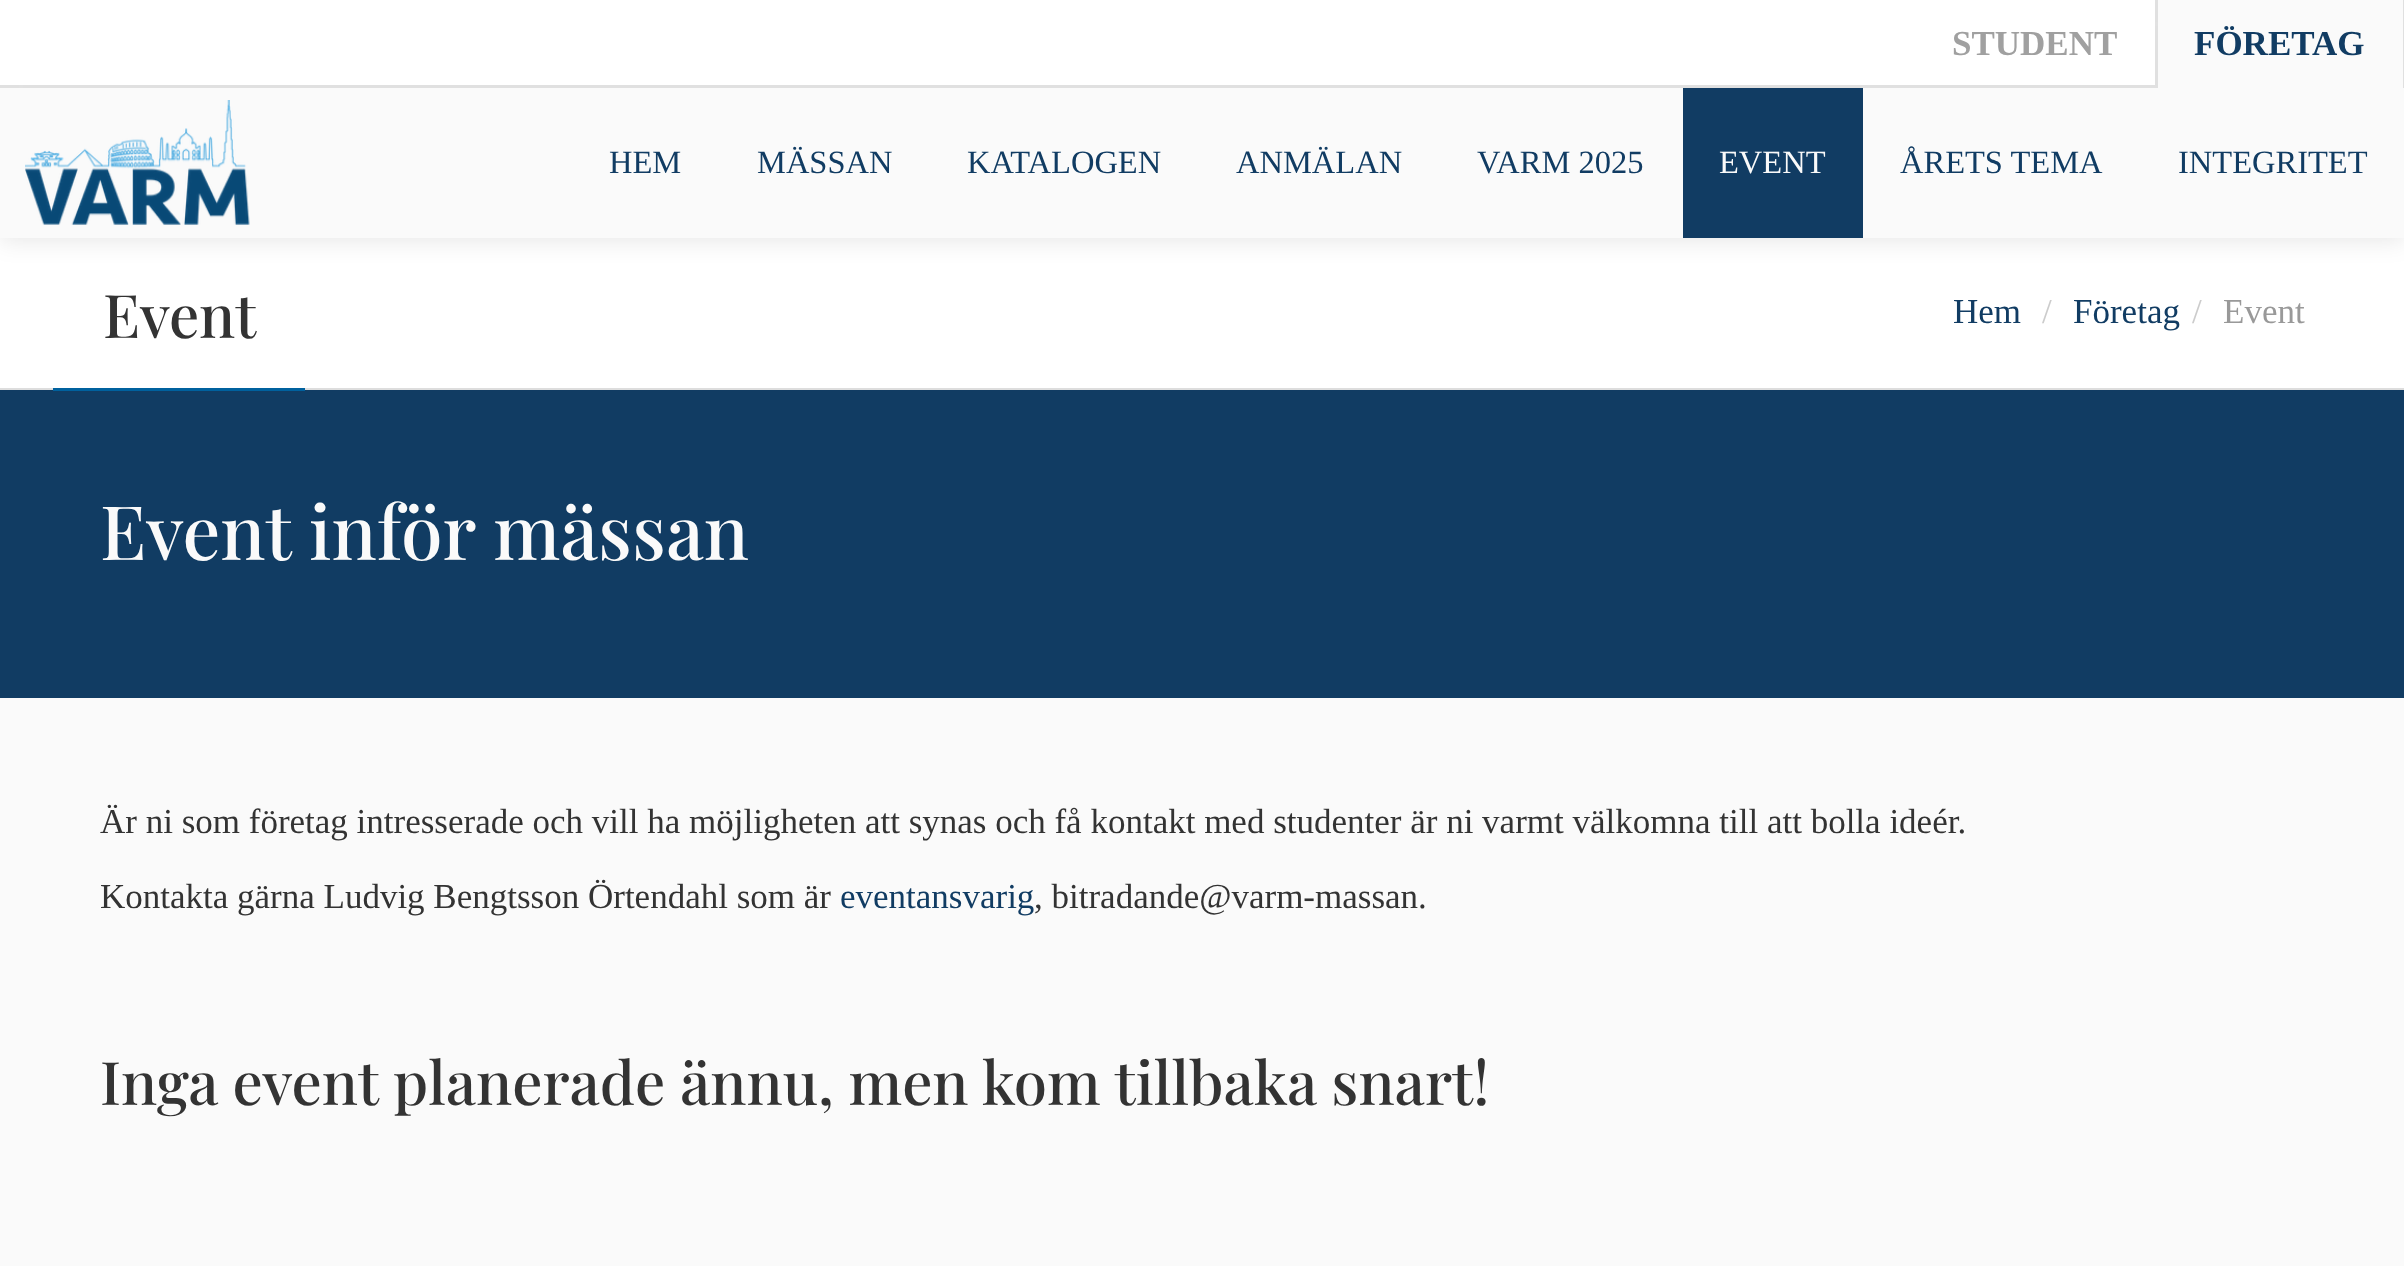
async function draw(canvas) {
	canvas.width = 2404;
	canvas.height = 1266;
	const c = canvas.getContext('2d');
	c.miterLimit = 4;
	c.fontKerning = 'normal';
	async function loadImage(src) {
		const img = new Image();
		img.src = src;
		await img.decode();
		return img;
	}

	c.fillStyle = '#fafafa';
	c.fillRect(0, 0, 2404, 1266);
	c.fillStyle = '#fff';
	c.fillRect(0, 238, 2404, 150);
	c.fillStyle = '#0000001a';
	c.filter = 'blur(12.5px)';
	c.beginPath();
	c.rect(0, 3, 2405, 237);
	c.fill();
	c.filter = 'none';
	for (const [x, y, w, h, color] of [
		[0, 88, 2404, 150, '#fafafa'],
		[0, 0, 2155, 85, '#fff'],
		[0, 85, 19, 3, '#e0e0e0'],
	]) {
		c.fillStyle = color;
		c.fillRect(x, y, w, h);
	}
	c.font = 'bold 35px Liberation Serif';
	c.fillStyle = '#a0a0a0';
	c.fillText('STUDENT', 1952, 55);
	for (const [x, y, w, h, color] of [
		[2158, 0, 245, 88, '#fafafa'],
		[2403, 0, 1, 88, '#e0e0e0'],
		[2155, 0, 3, 22, '#e0e0e0'],
	]) {
		c.fillStyle = color;
		c.fillRect(x, y, w, h);
	}
	c.fillStyle = '#113c63';
	c.fillText('FÖRETAG', 2194, 55);
	c.drawImage(await loadImage('img1.png'), 25, 100, 225, 125);
	c.font = '32.5px Liberation Serif';
	for (const [text, x, y] of [
		['HEM', 609, 173],
		['MÄSSAN', 757, 173],
		['KATALOGEN', 967, 173],
		['ANMÄLAN', 1236, 173],
		['VARM 2025', 1477, 173],
	]) {
		c.fillText(text, x, y);
	}
	c.fillRect(1683, 88, 180, 150);
	c.fillStyle = '#fafafa';
	c.fillText('EVENT', 1719, 173);
	c.fillStyle = '#113c63';
	c.fillText('ÅRETS TEMA', 1900, 173);
	c.fillText('INTEGRITET', 2178, 173);
	c.fillStyle = '#ddd';
	c.fillRect(0, 388, 2404, 2);
	c.font = '500 60px Playfair Display';
	c.fillStyle = '#333';
	c.fillText('Event', 103, 338);
	c.fillStyle = '#113c63';
	c.fillRect(0, 390, 2404, 308);
	c.fillStyle = '#00619e';
	c.fillRect(53, 388, 252, 3);
	c.font = '35px Liberation Serif';
	c.fillStyle = '#113c63';
	c.fillText('Hem', 1953, 323);
	c.fillStyle = '#ccc';
	c.fillText('/', 2042, 323);
	c.fillStyle = '#113c63';
	c.fillText('Företag', 2073, 323);
	c.fillStyle = '#ccc';
	c.fillText('/', 2192, 323);
	c.fillStyle = '#999';
	c.fillText('Event', 2223, 323);
	c.font = '500 75px Playfair Display';
	c.fillStyle = '#fafafa';
	c.fillText('Event inför mässan', 100, 560);
	c.font = '35px Liberation Serif';
	c.fillStyle = '#333';
	c.fillText('Är ni som företag intresserade och vill ha möjligheten att synas och få kontakt med studenter är ni varmt välkomna till att bolla ideér.', 100, 833);
	c.fillText('Kontakta gärna Ludvig Bengtsson Örtendahl som är', 100, 908);
	c.fillStyle = '#113c63';
	c.fillText('eventansvarig', 840, 908);
	c.fillStyle = '#333';
	c.fillText(', bitradande@varm-massan.', 1034, 908);
	c.font = '500 60px Playfair Display';
	c.fillText('Inga event planerade ännu, men kom tillbaka snart!', 100, 1105);
}

draw(document.querySelector('canvas'));
